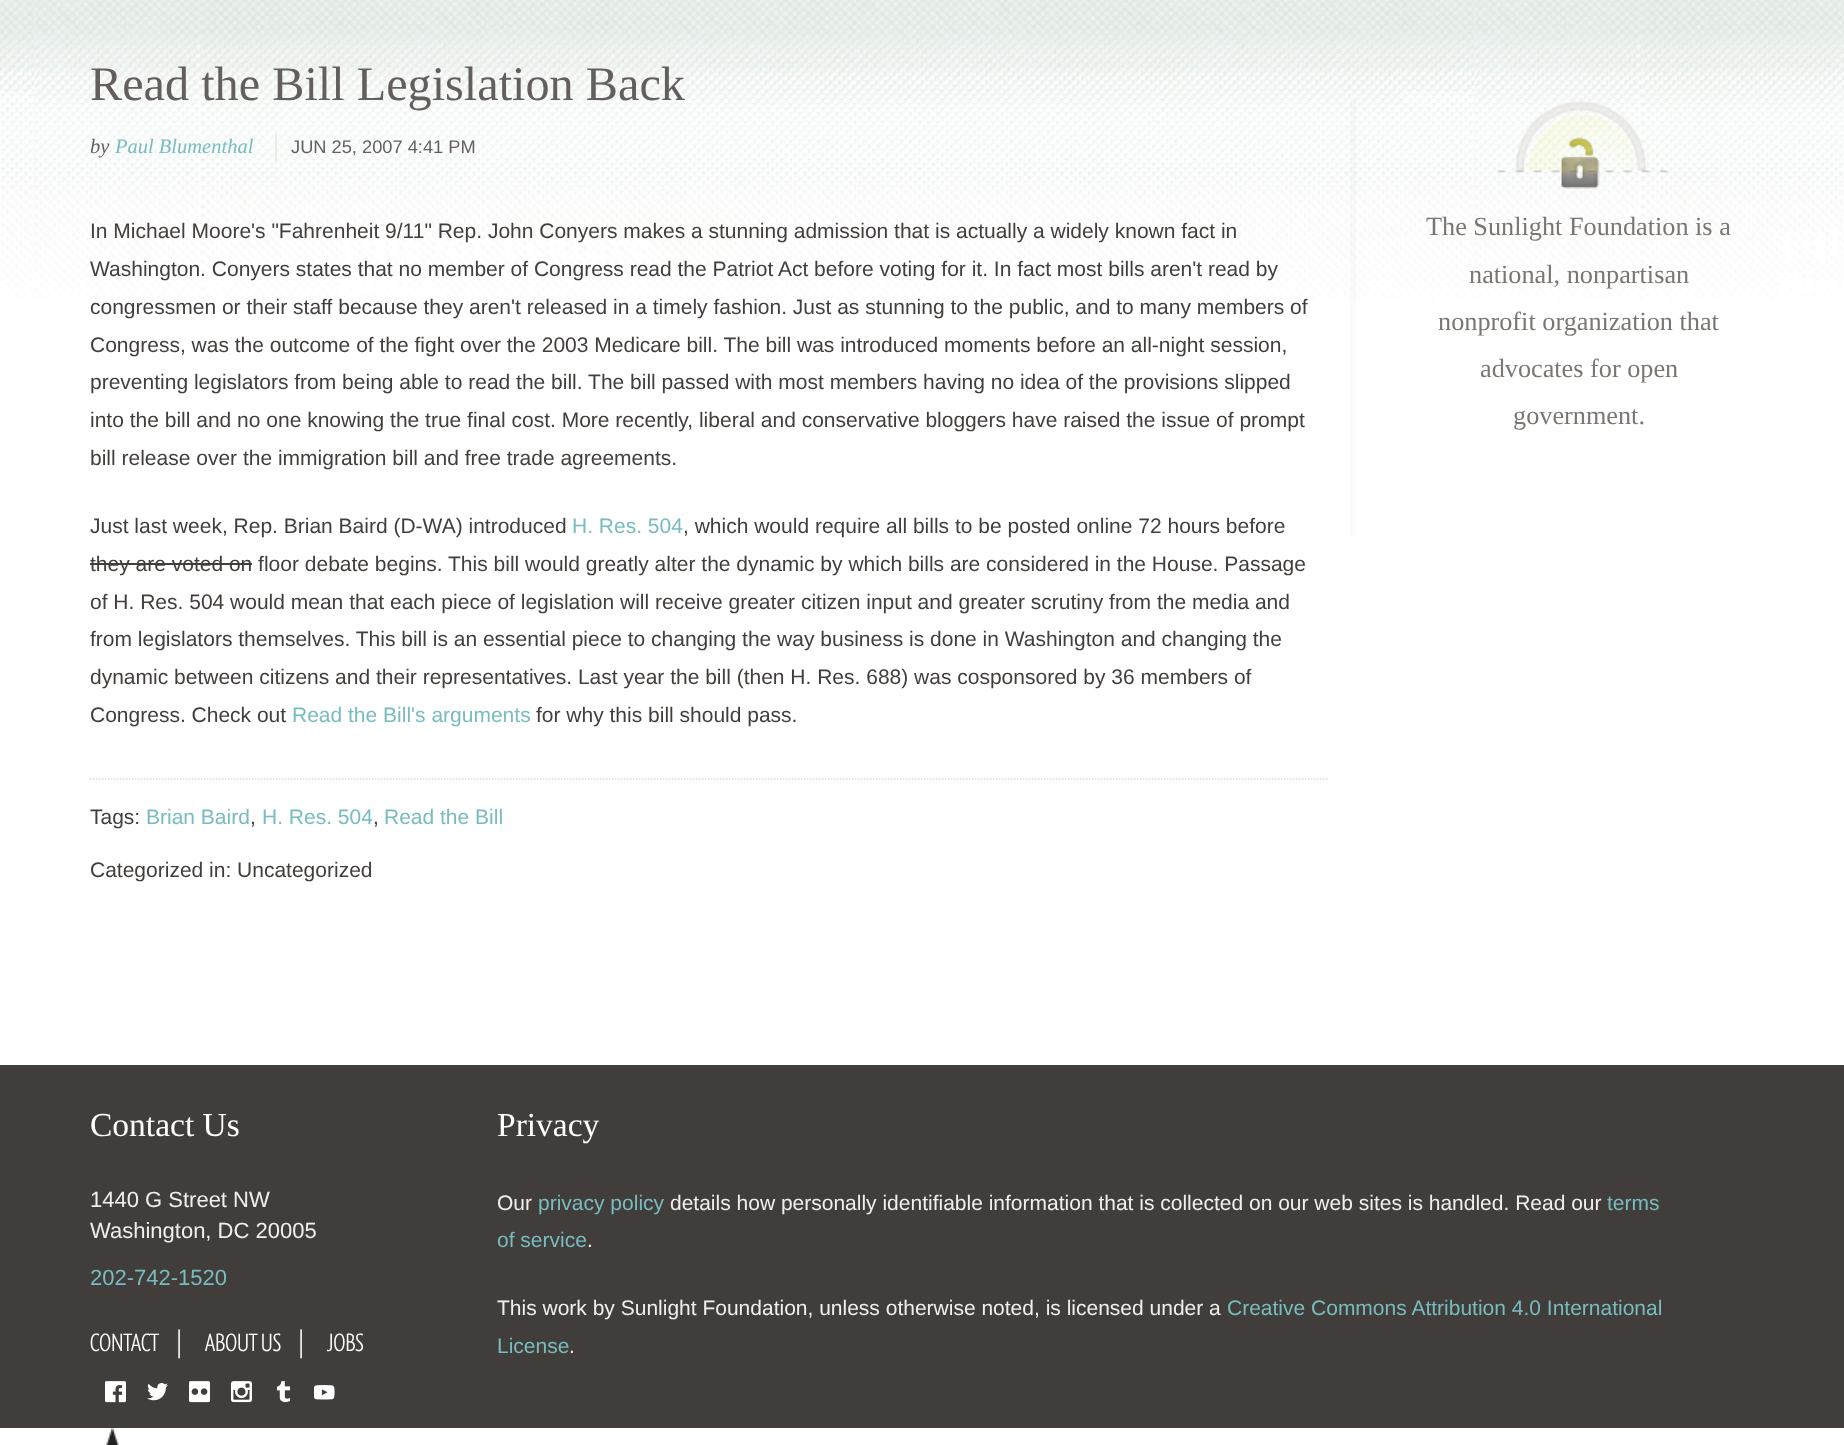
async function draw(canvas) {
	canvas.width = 1844;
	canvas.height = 1445;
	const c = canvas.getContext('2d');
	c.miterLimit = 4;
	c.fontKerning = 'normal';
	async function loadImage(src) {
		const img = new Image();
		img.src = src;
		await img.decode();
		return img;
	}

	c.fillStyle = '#fff';
	c.fillRect(0, 0, 1844, 1445);
	c.drawImage(await loadImage('img1.png'), 0, 0, 1844, 299);
	c.font = '48.25px Liberation Serif';
	c.fillStyle = '#635f5c';
	c.fillText('Read the Bill Legislation Back', 90, 100);
	c.font = 'italic 20.5px Liberation Serif';
	c.fillText('by', 90, 153);
	c.fillStyle = '#78bcbf';
	c.fillText('Paul Blumenthal', 115, 153);
	c.fillStyle = '#eceae3';
	c.fillRect(275, 134, 2, 27);
	c.font = '18.25px Liberation Sans';
	c.fillStyle = '#635f5c';
	c.fillText('JUN 25, 2007 4:41 PM', 291, 153);
	c.font = '21px Liberation Sans';
	c.fillStyle = '#413e3c';
	for (const [text, x, y] of [
		['In Michael Moore\'s "Fahrenheit 9/11" Rep. John Conyers makes a stunning admission that is actually a widely known fact in', 90, 238],
		['Washington. Conyers states that no member of Congress read the Patriot Act before voting for it. In fact most bills aren\'t read by', 90, 276],
		['congressmen or their staff because they aren\'t released in a timely fashion. Just as stunning to the public, and to many members of', 90, 314],
		['Congress, was the outcome of the fight over the 2003 Medicare bill. The bill was introduced moments before an all-night session,', 90, 352],
		['preventing legislators from being able to read the bill. The bill passed with most members having no idea of the provisions slipped', 90, 389],
		['into the bill and no one knowing the true final cost. More recently, liberal and conservative bloggers have raised the issue of prompt', 90, 427],
		['bill release over the immigration bill and free trade agreements.', 90, 465],
		['Just last week, Rep. Brian Baird (D-WA) introduced', 90, 533],
	]) {
		c.fillText(text, x, y);
	}
	c.fillStyle = '#78bcbf';
	c.fillText('H. Res. 504', 572, 533);
	c.fillStyle = '#413e3c';
	c.fillText(', which would require all bills to be posted online 72 hours before', 683, 533);
	c.fillText('they are voted on floor debate begins. This bill would greatly alter the dynamic by which bills are considered in the House. Passage', 90, 571);
	c.fillRect(90, 563, 162, 2);
	for (const [text, x, y] of [
		['of H. Res. 504 would mean that each piece of legislation will receive greater citizen input and greater scrutiny from the media and', 90, 609],
		['from legislators themselves. This bill is an essential piece to changing the way business is done in Washington and changing the', 90, 646],
		['dynamic between citizens and their representatives. Last year the bill (then H. Res. 688) was cosponsored by 36 members of', 90, 684],
		['Congress. Check out', 90, 722],
	]) {
		c.fillText(text, x, y);
	}
	c.fillStyle = '#78bcbf';
	c.fillText('Read the Bill\'s arguments', 292, 722);
	c.fillStyle = '#413e3c';
	c.fillText('for why this bill should pass.', 536, 722);
	c.beginPath();
	c.moveTo(90, 779);
	c.lineTo(1327.5, 779);
	c.strokeStyle = '#dddbd9';
	c.lineWidth = 1.5;
	c.setLineDash([1.5, 1.5]);
	c.stroke();
	c.fillText('Tags:', 90, 824);
	c.fillStyle = '#78bcbf';
	c.fillText('Brian Baird', 146, 824);
	c.fillStyle = '#413e3c';
	c.fillText(',', 250, 824);
	c.fillStyle = '#78bcbf';
	c.fillText('H. Res. 504', 262, 824);
	c.fillStyle = '#413e3c';
	c.fillText(',', 373, 824);
	c.fillStyle = '#78bcbf';
	c.fillText('Read the Bill', 384, 824);
	c.fillStyle = '#413e3c';
	c.fillText('Categorized in: Uncategorized', 90, 877);
	c.drawImage(await loadImage('img2.png'), 1350, 99, 6, 437);
	c.drawImage(await loadImage('img3.png'), 1497, 101, 172, 88);
	c.font = '26.25px Liberation Serif';
	c.fillStyle = '#7c7672';
	for (const [text, x, y] of [
		['The Sunlight Foundation is a', 1426, 235],
		['national, nonpartisan', 1469, 283],
		['nonprofit organization that', 1438, 330],
		['advocates for open', 1480, 377],
		['government.', 1513, 424],
	]) {
		c.fillText(text, x, y);
	}
	c.fillStyle = '#413d3a';
	c.fillRect(0, 1065, 1844, 363);
	c.font = '33.5px Liberation Serif';
	c.fillStyle = '#fff';
	c.fillText('Contact Us', 90, 1136);
	c.font = '22px Liberation Sans';
	c.fillStyle = '#f1efed';
	c.fillText('1440 G Street NW', 90, 1207);
	c.fillText('Washington, DC 20005', 90, 1238);
	c.fillStyle = '#78bcbf';
	c.fillText('202-742-1520', 90, 1285);
	c.font = '300 25.5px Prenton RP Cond';
	c.fillStyle = '#fff';
	for (const [text, x, y] of [
		['CONTACT', 90, 1351],
		['|', 174, 1351],
		['ABOUT US', 205, 1351],
		['|', 296, 1351],
		['JOBS', 327, 1351],
	]) {
		c.fillText(text, x, y);
	}
	c.drawImage(await loadImage('img4.png'), 105, 1381, 21, 22);
	c.drawImage(await loadImage('img5.png'), 147, 1383, 21, 18);
	c.drawImage(await loadImage('img6.png'), 189, 1381, 21, 22);
	c.drawImage(await loadImage('img7.png'), 231, 1381, 21, 22);
	c.drawImage(await loadImage('img8.png'), 276, 1381, 15, 22);
	c.drawImage(await loadImage('img9.png'), 314, 1385, 21, 15);
	c.font = '33.5px Liberation Serif';
	c.fillText('Privacy', 497, 1136);
	c.font = '21px Liberation Sans';
	c.fillStyle = '#f1efed';
	c.fillText('Our', 497, 1210);
	c.fillStyle = '#78bcbf';
	c.fillText('privacy policy', 538, 1210);
	c.fillStyle = '#f1efed';
	c.fillText('details how personally identifiable information that is collected on our web sites is handled. Read our', 670, 1210);
	c.fillStyle = '#78bcbf';
	c.fillText('terms', 1607, 1210);
	c.fillText('of service', 497, 1247);
	c.fillStyle = '#f1efed';
	c.fillText('.', 587, 1247);
	c.fillText('This work by Sunlight Foundation, unless otherwise noted, is licensed under a', 497, 1315);
	c.fillStyle = '#78bcbf';
	c.fillText('Creative Commons Attribution 4.0 International', 1227, 1315);
	c.fillText('License', 497, 1353);
	c.fillStyle = '#f1efed';
	c.fillText('.', 569, 1353);
	c.drawImage(await loadImage('img10.png'), 106, 1428, 13, 17);
}

draw(document.querySelector('canvas'));
